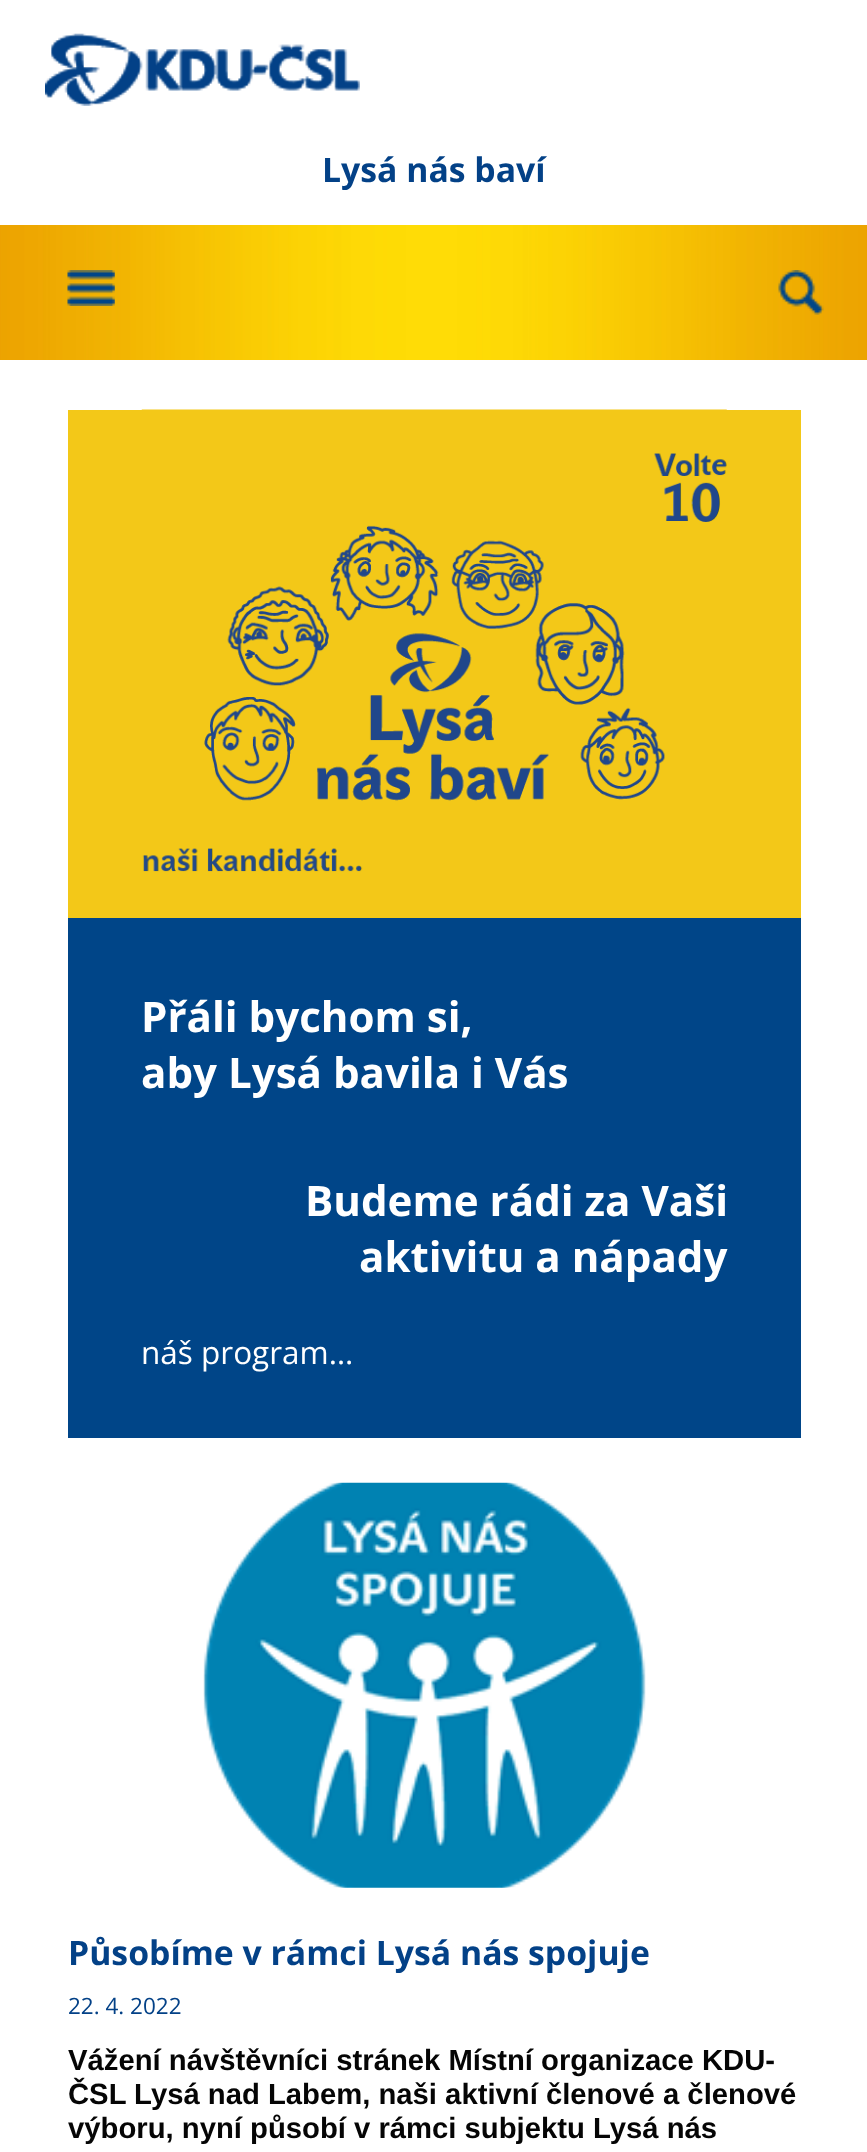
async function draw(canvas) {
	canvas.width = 867;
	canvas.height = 2152;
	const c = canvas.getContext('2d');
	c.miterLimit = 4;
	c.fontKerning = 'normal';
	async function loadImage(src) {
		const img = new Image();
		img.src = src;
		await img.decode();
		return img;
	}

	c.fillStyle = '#fff';
	c.fillRect(0, 0, 867, 2152);
	c.drawImage(await loadImage('img1.png'), 45, 33, 315, 73);
	c.drawImage(await loadImage('img2.png'), 45, 33, 315, 73);
	c.font = 'bold 33.75px Open Sans';
	c.fillStyle = '#034187';
	c.fillText('Lysá nás baví', 322, 182);
	c.drawImage(await loadImage('img3.png'), 0, 225, 867, 135);
	c.drawImage(await loadImage('img4.png'), 67, 270, 48, 36);
	c.drawImage(await loadImage('img5.png'), 778, 270, 46, 45);
	c.fillStyle = '#f3c818';
	c.fillRect(68, 410, 733, 508);
	c.drawImage(await loadImage('img6.png'), 141, 409, 586, 463);
	c.fillStyle = '#004588';
	c.fillRect(68, 918, 733, 520);
	c.font = 'bold 42.1px Open Sans';
	c.fillStyle = '#fff';
	for (const [text, x, y] of [
		['Přáli bychom si,', 141, 1032],
		['aby Lysá bavila i Vás', 141, 1088],
		['Budeme rádi za Vaši', 305, 1216],
		['aktivitu a nápady', 359, 1272],
	]) {
		c.fillText(text, x, y);
	}
	c.font = '31.5px Open Sans';
	c.fillText('náš program…', 141, 1364);
	c.drawImage(await loadImage('img7.png'), 203, 1482, 443, 406);
	c.font = 'bold 33.75px Open Sans';
	c.fillStyle = '#034187';
	c.fillText('Působíme v rámci Lysá nás spojuje', 68, 1965);
	c.font = '22.5px Open Sans';
	c.fillText('22. 4. 2022', 68, 2014);
	c.font = 'bold 29.25px Liberation Sans';
	c.fillStyle = '#050505';
	for (const [text, x, y] of [
		['Vážení návštěvníci stránek Místní organizace KDU-', 68, 2070],
		['ČSL Lysá nad Labem, naši aktivní členové a členové', 68, 2104],
		['výboru, nyní působí v rámci subjektu Lysá nás', 68, 2138],
	]) {
		c.fillText(text, x, y);
	}
}

draw(document.querySelector('canvas'));
